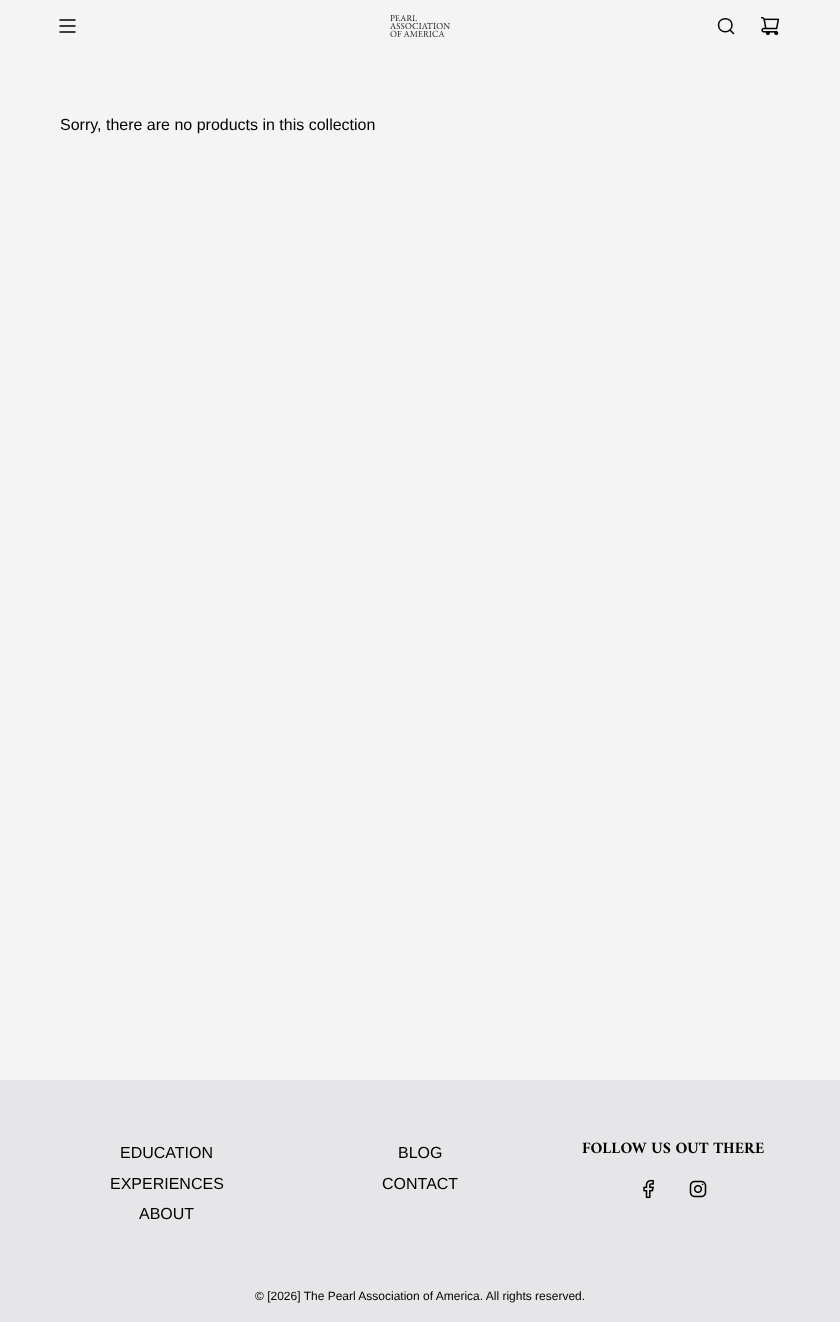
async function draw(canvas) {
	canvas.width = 840;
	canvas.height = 1322;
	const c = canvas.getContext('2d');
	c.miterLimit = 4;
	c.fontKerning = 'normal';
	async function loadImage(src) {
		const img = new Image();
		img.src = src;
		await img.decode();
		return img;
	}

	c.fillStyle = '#f4f4f4';
	c.fillRect(0, 0, 840, 1322);
	c.beginPath();
	c.moveTo(60, 20);
	c.lineTo(75, 20);
	c.moveTo(60, 26);
	c.lineTo(75, 26);
	c.moveTo(60, 32);
	c.lineTo(75, 32);
	c.strokeStyle = '#000';
	c.lineWidth = 1.5;
	c.lineCap = 'round';
	c.lineJoin = 'round';
	c.stroke();
	c.drawImage(await loadImage('img1.png'), 390, 15, 60, 22);
	c.beginPath();
	c.moveTo(730, 30);
	c.lineTo(733.5, 33.5);
	c.moveTo(718.5, 25);
	c.bezierCurveTo(718.5, 34, 732, 34, 732, 25);
	c.bezierCurveTo(732, 16.5, 718.5, 16.5, 718.5, 25);
	c.closePath();
	c.stroke();
	c.drawImage(await loadImage('img2.png'), 760, 16, 20, 20);
	c.font = '16px Liberation Sans';
	c.fillStyle = '#000';
	c.fillText('Sorry, there are no products in this collection', 60, 130);
	c.fillStyle = '#e6e5e7';
	c.fillRect(0, 1080, 840, 242);
	c.fillStyle = '#000';
	for (const [text, x, y] of [
		['EDUCATION', 120, 1158],
		['EXPERIENCES', 110, 1189],
		['ABOUT', 139, 1219],
		['BLOG', 398, 1158],
		['CONTACT', 382, 1189],
	]) {
		c.fillText(text, x, y);
	}
	c.font = 'bold 16px Amiri';
	c.fillText('FOLLOW US OUT THERE', 582, 1153);
	c.drawImage(await loadImage('img3.png'), 643, 1179, 11, 20);
	c.drawImage(await loadImage('img4.png'), 689, 1180, 18, 18);
	c.font = '12px Liberation Sans';
	c.fillText('© [2026] The Pearl Association of America. All rights reserved.', 255, 1300);
}

draw(document.querySelector('canvas'));
